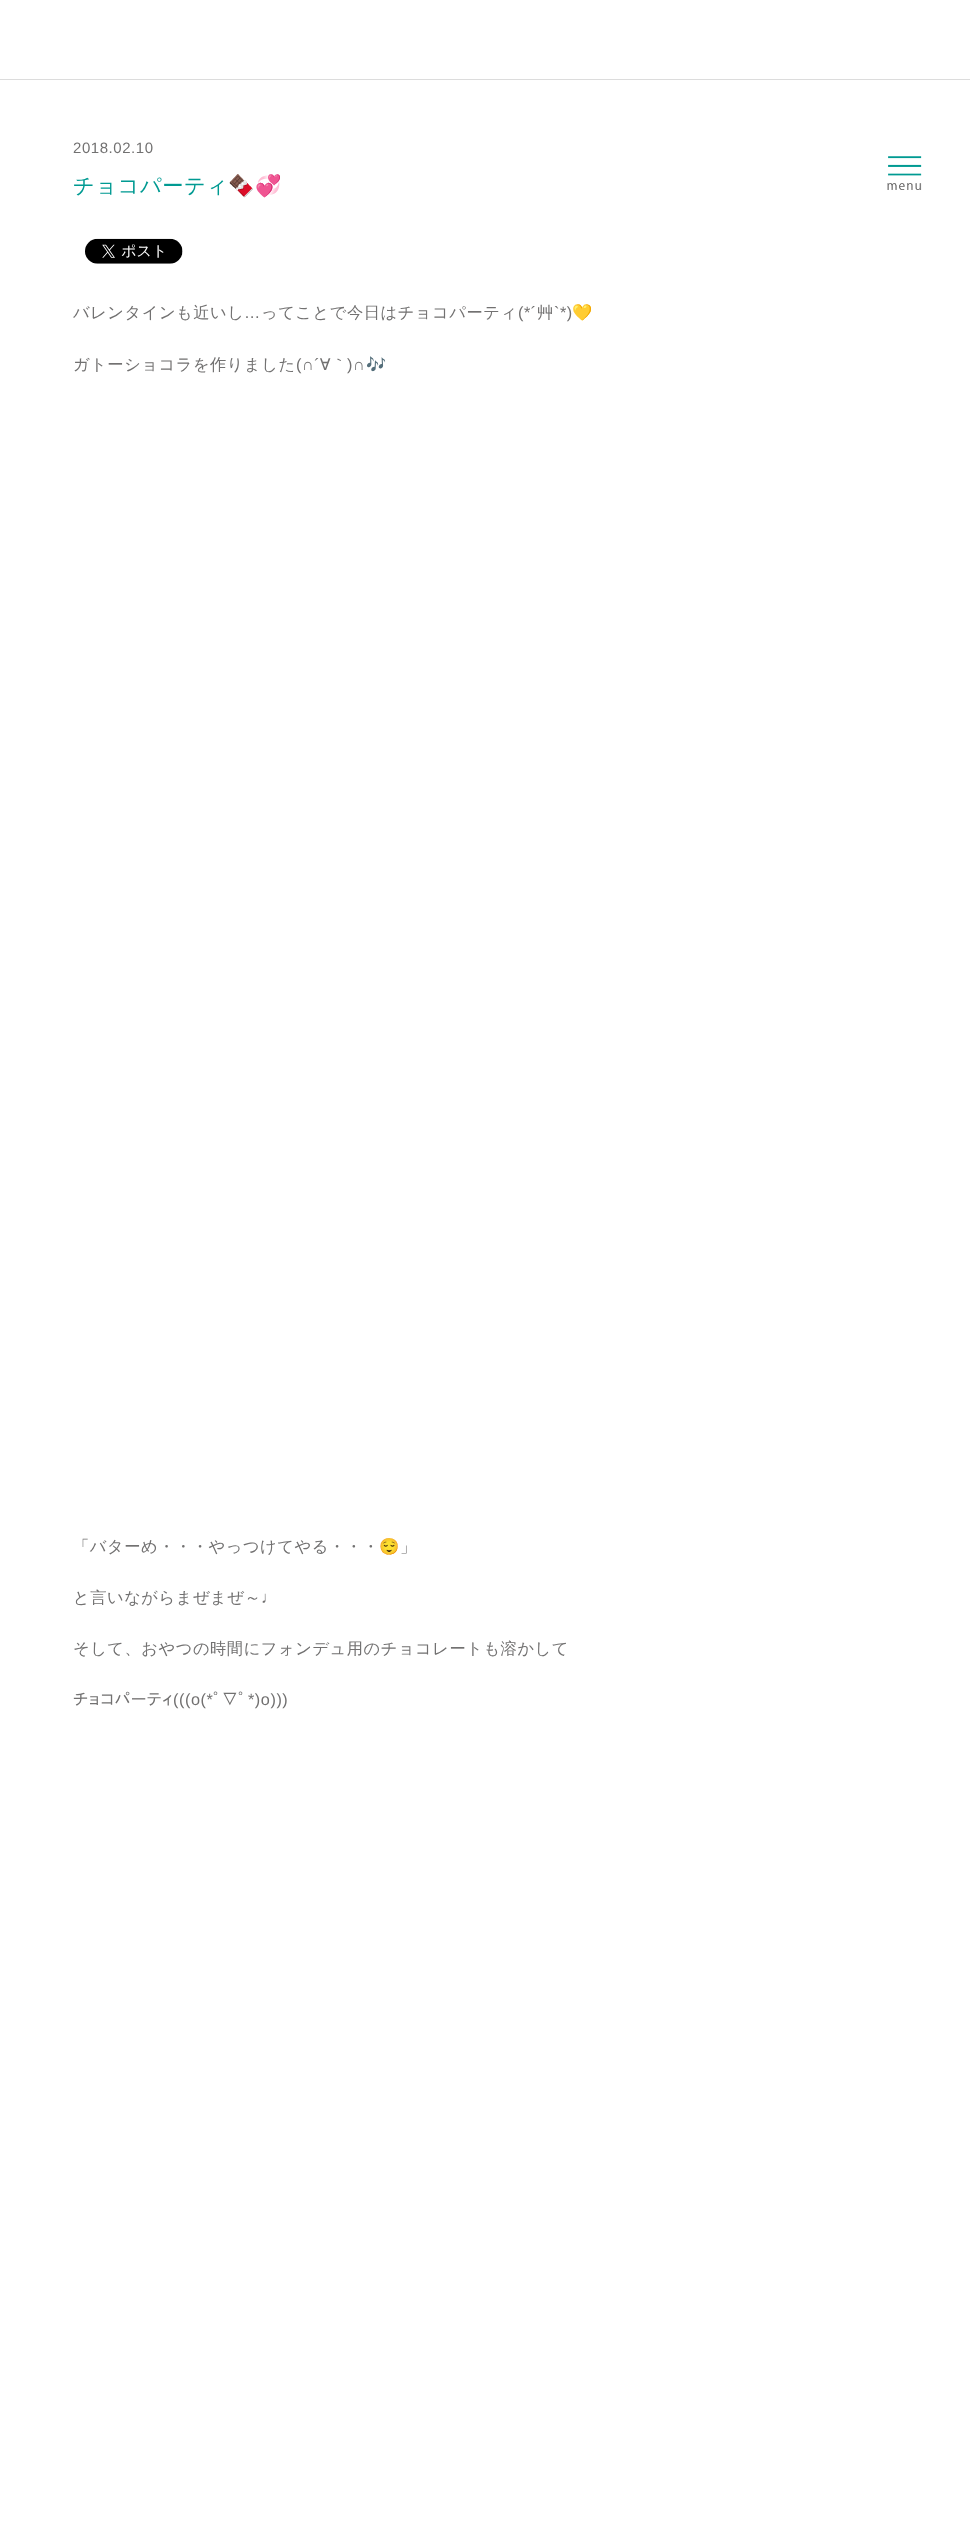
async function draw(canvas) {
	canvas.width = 970;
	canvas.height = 2534;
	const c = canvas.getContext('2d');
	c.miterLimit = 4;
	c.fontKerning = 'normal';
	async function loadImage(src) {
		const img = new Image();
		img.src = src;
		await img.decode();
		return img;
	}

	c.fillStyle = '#fff';
	c.fillRect(0, 0, 970, 2534);
	c.fillStyle = '#dcdcdc';
	c.fillRect(0, 79, 970, 1);
	c.drawImage(await loadImage('img1.png'), 887, 156, 35, 34);
	c.letterSpacing = '0.55px';
	c.font = '15px Liberation Sans';
	c.fillStyle = '#727171';
	c.fillText('2018.02.10', 73, 153);
	c.font = '500 21.25px WenQuanYi Zen Hei';
	c.fillStyle = '#009a92';
	c.fillText('チョコパーティ', 73, 193);
	c.font = '21.25px Noto Color Emoji';
	c.fillText('🍫💞', 228, 193);
	c.drawImage(await loadImage('img2.png'), 85, 238, 98, 26);
	c.font = '500 16.25px WenQuanYi Zen Hei';
	c.fillStyle = '#727171';
	c.fillText('バレンタインも近いし', 73, 318);
	c.font = '16.25px Liberation Sans';
	c.fillText('…', 244, 318);
	c.font = '500 16.25px WenQuanYi Zen Hei';
	c.fillText('ってことで今日はチョコパーティ', 261, 318);
	c.font = '16.25px Liberation Sans';
	c.fillText('(*´', 518, 318);
	c.font = '500 16.25px WenQuanYi Zen Hei';
	c.fillText('艸', 537, 318);
	c.font = '16.25px Liberation Sans';
	c.fillText('`*)', 554, 318);
	c.font = '16.25px Noto Color Emoji';
	c.fillText('💛', 572, 318);
	c.font = '500 16.25px WenQuanYi Zen Hei';
	c.fillText('ガトーショコラを作りました', 73, 370);
	c.font = '16.25px Liberation Sans';
	c.fillText('(∩´', 296, 370);
	c.font = '500 16.25px WenQuanYi Zen Hei';
	c.fillText('∀｀', 320, 370);
	c.font = '16.25px Liberation Sans';
	c.fillText(')∩', 347, 370);
	c.font = '16.25px Noto Color Emoji';
	c.fillText('🎶', 366, 370);
	c.font = '500 16.25px WenQuanYi Zen Hei';
	c.fillText('「バターめ・・・やっつけてやる・・・', 73, 1552);
	c.font = '16.25px Noto Color Emoji';
	c.fillText('😌', 379, 1552);
	c.font = '500 16.25px WenQuanYi Zen Hei';
	c.fillText('」', 400, 1552);
	c.fillText('と言いながらまぜまぜ～', 73, 1603);
	c.font = '16.25px Liberation Sans';
	c.fillText('♩', 261, 1603);
	c.font = '500 16.25px WenQuanYi Zen Hei';
	c.fillText('そして、おやつの時間にフォンデュ用のチョコレートも溶かして', 73, 1654);
	c.font = '16.25px IPAPGothic';
	c.fillText('チョコパーティ', 73, 1705);
	c.font = '16.25px Liberation Sans';
	c.fillText('(((o(*', 173, 1705);
	c.font = '16.25px IPAPGothic';
	c.fillText('ﾟ▽ﾟ', 213, 1705);
	c.font = '16.25px Liberation Sans';
	c.fillText('*)o)))', 248, 1705);
}

draw(document.querySelector('canvas'));
